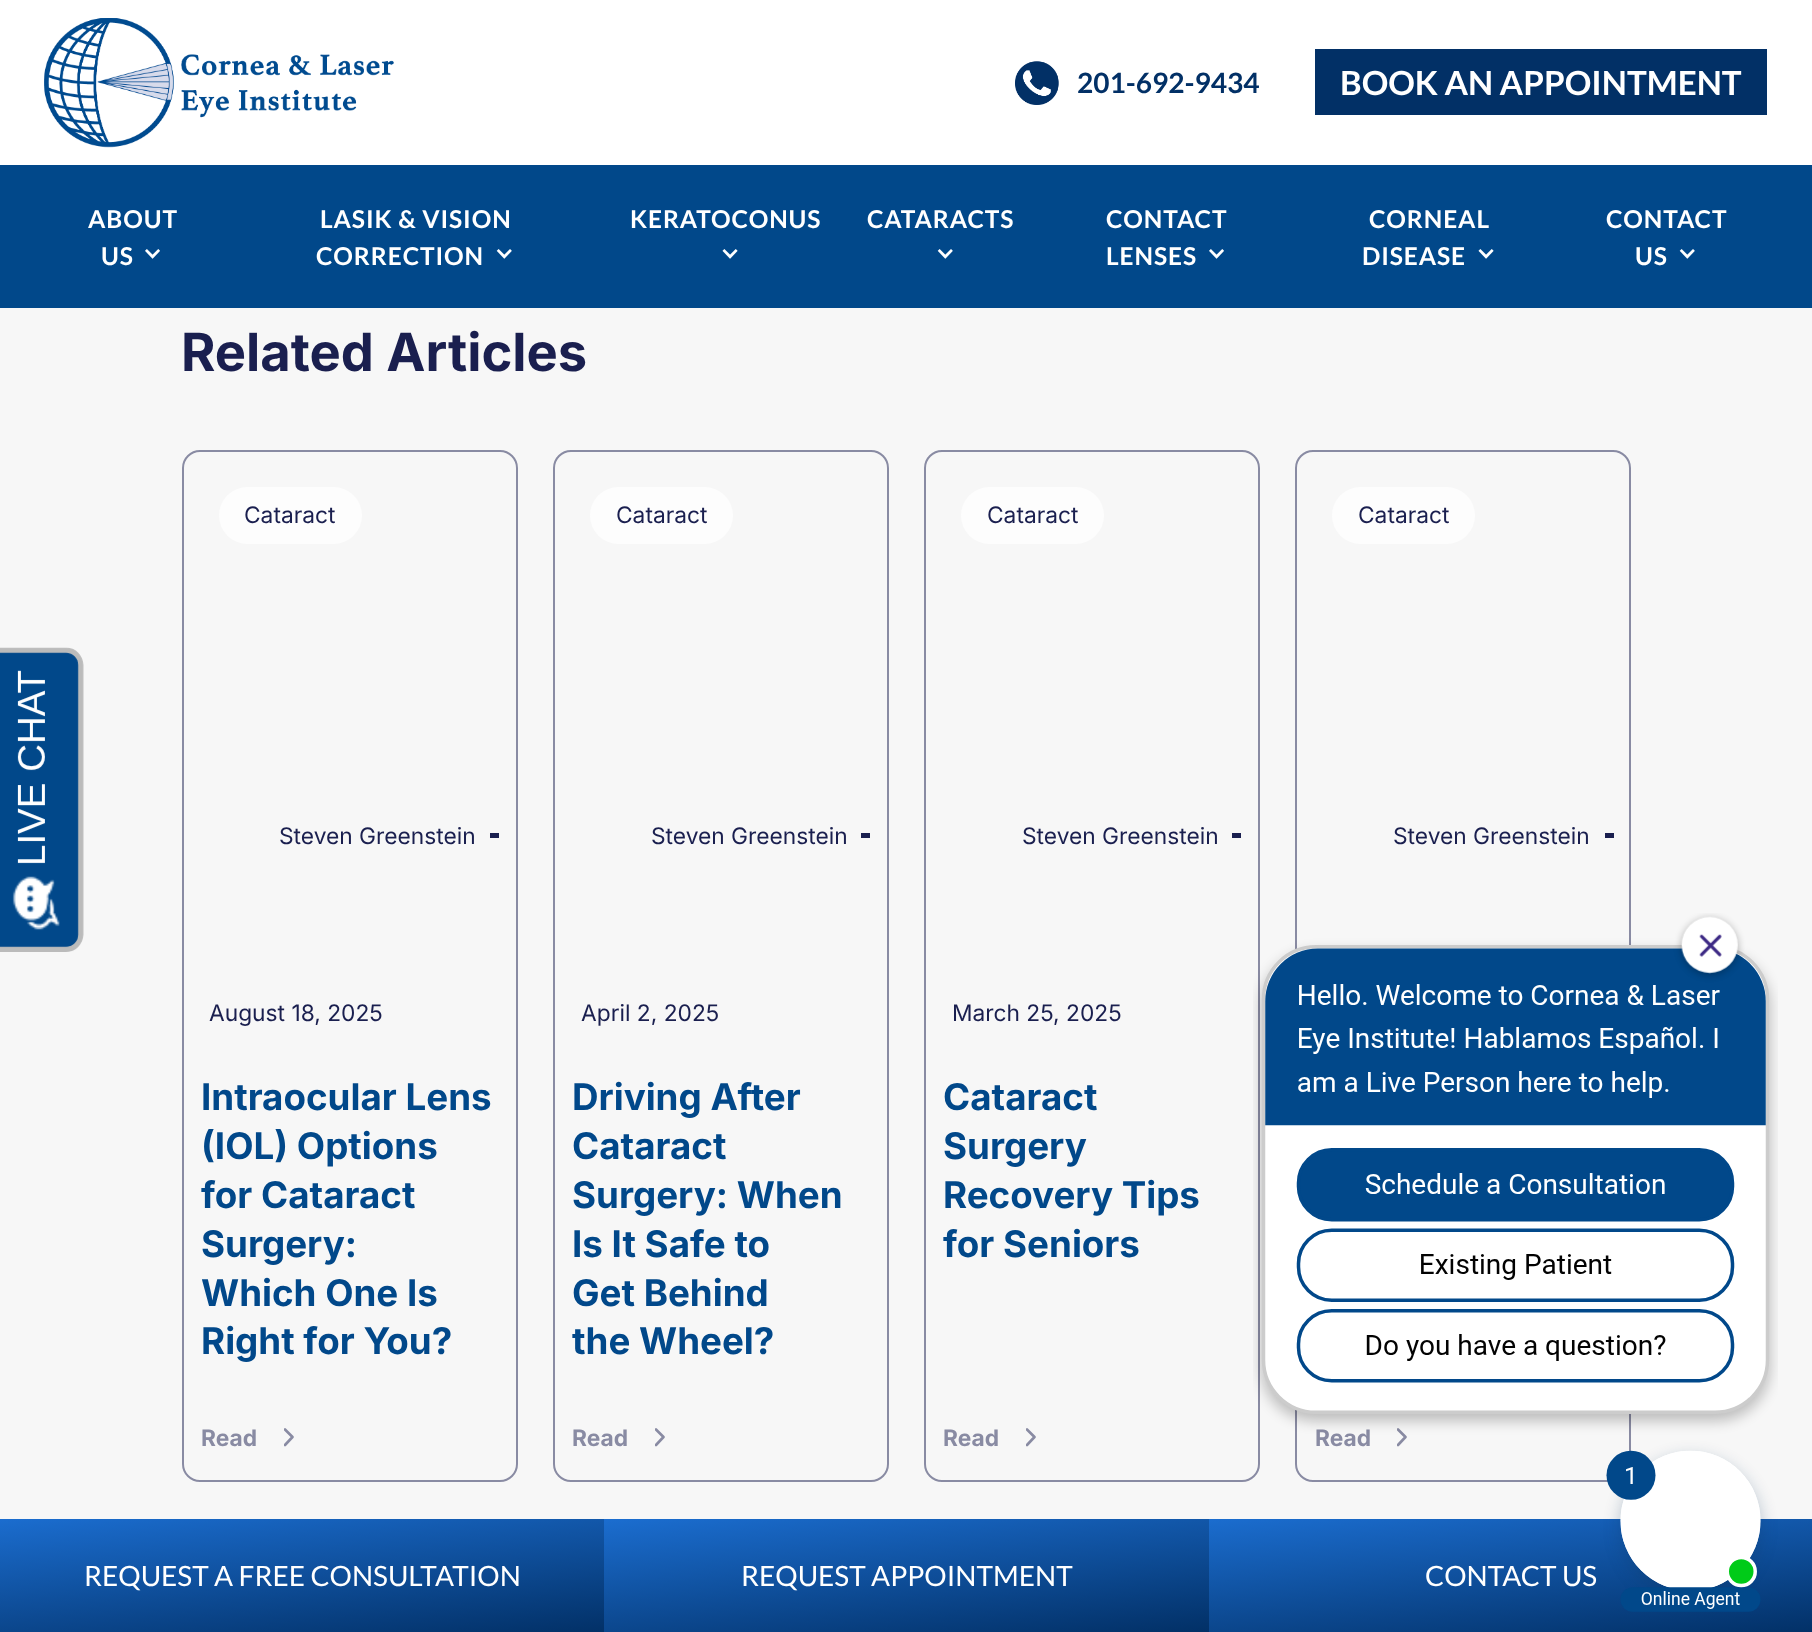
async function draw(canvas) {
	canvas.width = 1812;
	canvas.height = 1632;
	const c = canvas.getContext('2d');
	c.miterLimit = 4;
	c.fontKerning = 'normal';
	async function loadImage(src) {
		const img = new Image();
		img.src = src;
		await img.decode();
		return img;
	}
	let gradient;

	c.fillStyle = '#f7f7f7';
	c.fillRect(0, 0, 1812, 1632);
	c.fillStyle = '#fff';
	c.fillRect(0, 0, 1812, 165);
	c.drawImage(await loadImage('img1.png'), 44, 18, 350, 130);
	c.drawImage(await loadImage('img2.png'), 1015, 61, 44, 44);
	c.font = 'bold 28px Lato';
	c.fillStyle = '#023066';
	c.fillText('201-692-9434', 1077, 93);
	c.fillRect(1315, 49, 452, 66);
	c.font = 'bold 33.25px Lato';
	c.fillStyle = '#fff';
	c.fillText('BOOK AN APPOINTMENT', 1340, 95);
	c.fillStyle = '#01488a';
	c.fillRect(0, 165, 1812, 143);
	c.letterSpacing = '0.9px';
	c.font = 'bold 24.5px Lato';
	c.fillStyle = '#fff';
	c.fillText('ABOUT', 88, 228);
	c.fillText('US', 101, 265);
	c.drawImage(await loadImage('img3.png'), 145, 249, 15, 10);
	c.fillText('LASIK & VISION', 320, 228);
	c.fillText('CORRECTION', 316, 265);
	c.drawImage(await loadImage('img4.png'), 496, 249, 16, 10);
	c.fillText('KERATOCONUS', 630, 228);
	c.drawImage(await loadImage('img5.png'), 722, 249, 16, 10);
	c.fillText('CATARACTS', 867, 228);
	c.drawImage(await loadImage('img4.png'), 937, 249, 16, 10);
	c.fillText('CONTACT', 1106, 228);
	c.fillText('LENSES', 1106, 265);
	c.drawImage(await loadImage('img3.png'), 1209, 249, 15, 10);
	c.fillText('CORNEAL', 1369, 228);
	c.fillText('DISEASE', 1362, 265);
	c.drawImage(await loadImage('img5.png'), 1478, 249, 16, 10);
	c.fillText('CONTACT', 1606, 228);
	c.fillText('US', 1635, 265);
	c.drawImage(await loadImage('img4.png'), 1679, 249, 16, 10);
	c.drawImage(await loadImage('img6.png'), 0, 647, 84, 305);
	c.letterSpacing = '0px';
	c.font = 'bold 52.5px Inter';
	c.fillStyle = '#1a1f4f';
	c.fillText('Related Articles', 181, 371);
	c.beginPath();
	c.roundRect(183, 451, 334, 1030, 17);
	c.strokeStyle = '#898ba3';
	c.lineWidth = 2;
	c.stroke();
	c.fillStyle = '#fdfdfd';
	c.beginPath();
	c.roundRect(219, 487, 143, 57, 28.5);
	c.fill();
	c.font = '22.75px Inter';
	c.fillStyle = '#1a1f4f';
	c.fillText('Cataract', 244, 523);
	c.fillText('Steven Greenstein', 279, 844);
	c.fillRect(490, 833, 9, 5);
	c.fillText('August 18, 2025', 209, 1021);
	c.font = 'bold 36.75px Inter';
	c.fillStyle = '#01488a';
	for (const [text, x, y] of [
		['Intraocular Lens', 201, 1110],
		['(IOL) Options', 201, 1159],
		['for Cataract', 201, 1208],
		['Surgery:', 201, 1257],
		['Which One Is', 201, 1306],
		['Right for You?', 201, 1354],
	]) {
		c.fillText(text, x, y);
	}
	c.font = 'bold 22.75px Inter';
	c.fillStyle = '#898ba3';
	c.fillText('Read', 201, 1446);
	c.save();
	c.beginPath();
	c.rect(284, 1428, 10, 19);
	c.clip();
	c.beginPath();
	c.moveTo(285, 1429.5);
	c.lineTo(292.5, 1437);
	c.lineTo(285, 1445);
	c.lineWidth = 2.6;
	c.lineCap = 'round';
	c.lineJoin = 'round';
	c.stroke();
	c.restore();
	c.beginPath();
	c.roundRect(554, 451, 334, 1030, 17);
	c.stroke();
	c.fillStyle = '#fdfdfd';
	c.beginPath();
	c.roundRect(590, 487, 143, 57, 28.5);
	c.fill();
	c.font = '22.75px Inter';
	c.fillStyle = '#1a1f4f';
	c.fillText('Cataract', 616, 523);
	c.fillText('Steven Greenstein', 651, 844);
	c.fillRect(861, 833, 9, 5);
	c.fillText('April 2, 2025', 581, 1021);
	c.font = 'bold 36.75px Inter';
	c.fillStyle = '#01488a';
	for (const [text, x, y] of [
		['Driving After', 572, 1110],
		['Cataract', 572, 1159],
		['Surgery: When', 572, 1208],
		['Is It Safe to', 572, 1257],
		['Get Behind', 572, 1306],
		['the Wheel?', 572, 1354],
	]) {
		c.fillText(text, x, y);
	}
	c.font = 'bold 22.75px Inter';
	c.fillStyle = '#898ba3';
	c.fillText('Read', 572, 1446);
	c.save();
	c.beginPath();
	c.rect(655, 1428, 10, 19);
	c.clip();
	c.beginPath();
	c.moveTo(656, 1429.5);
	c.lineTo(663.5, 1437);
	c.lineTo(656, 1445);
	c.lineWidth = 2.6;
	c.lineCap = 'round';
	c.lineJoin = 'round';
	c.stroke();
	c.restore();
	c.beginPath();
	c.roundRect(925, 451, 334, 1030, 17);
	c.stroke();
	c.fillStyle = '#fdfdfd';
	c.beginPath();
	c.roundRect(961, 487, 143, 57, 28.5);
	c.fill();
	c.font = '22.75px Inter';
	c.fillStyle = '#1a1f4f';
	c.fillText('Cataract', 987, 523);
	c.fillText('Steven Greenstein', 1022, 844);
	c.fillRect(1232, 833, 9, 5);
	c.fillText('March 25, 2025', 952, 1021);
	c.font = 'bold 36.75px Inter';
	c.fillStyle = '#01488a';
	for (const [text, x, y] of [
		['Cataract', 943, 1110],
		['Surgery', 943, 1159],
		['Recovery Tips', 943, 1208],
		['for Seniors', 943, 1257],
	]) {
		c.fillText(text, x, y);
	}
	c.font = 'bold 22.75px Inter';
	c.fillStyle = '#898ba3';
	c.fillText('Read', 943, 1446);
	c.save();
	c.beginPath();
	c.rect(1026, 1428, 10, 19);
	c.clip();
	c.beginPath();
	c.moveTo(1027, 1429.5);
	c.lineTo(1034.5, 1437);
	c.lineTo(1027, 1445);
	c.lineWidth = 2.6;
	c.lineCap = 'round';
	c.lineJoin = 'round';
	c.stroke();
	c.restore();
	c.beginPath();
	c.roundRect(1296, 451, 334, 1030, 17);
	c.stroke();
	c.fillStyle = '#fdfdfd';
	c.beginPath();
	c.roundRect(1332, 487, 143, 57, 28.5);
	c.fill();
	c.font = '22.75px Inter';
	c.fillStyle = '#1a1f4f';
	c.fillText('Cataract', 1358, 523);
	c.fillText('Steven Greenstein', 1393, 844);
	c.fillRect(1605, 833, 9, 5);
	c.font = 'bold 22.75px Inter';
	c.fillStyle = '#898ba3';
	c.fillText('Read', 1315, 1446);
	c.save();
	c.beginPath();
	c.rect(1397, 1428, 10, 19);
	c.clip();
	c.beginPath();
	c.moveTo(1398, 1429.5);
	c.lineTo(1405.5, 1437);
	c.lineTo(1398, 1445);
	c.lineWidth = 2.6;
	c.lineCap = 'round';
	c.lineJoin = 'round';
	c.stroke();
	c.restore();
	gradient = c.createLinearGradient(1502, 1488, 1520, 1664);
	gradient.addColorStop(0, '#1b6dcf');
	gradient.addColorStop(1, '#023066');
	c.fillStyle = gradient;
	c.fillRect(1209, 1519, 603, 113);
	c.font = '28px Lato';
	c.fillStyle = '#fff';
	c.fillText('CONTACT US', 1425, 1586);
	c.drawImage(await loadImage('img7.png'), 1253, 913, 525, 699);
	gradient = c.createLinearGradient(293, 1488, 311, 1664);
	gradient.addColorStop(0, '#1b6dcf');
	gradient.addColorStop(1, '#023066');
	c.fillStyle = gradient;
	c.fillRect(0, 1519, 604, 113);
	c.fillStyle = '#fff';
	c.fillText('REQUEST A FREE CONSULTATION', 84, 1586);
	gradient = c.createLinearGradient(897, 1488, 916, 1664);
	gradient.addColorStop(0, '#1b6dcf');
	gradient.addColorStop(1, '#023066');
	c.fillStyle = gradient;
	c.fillRect(604, 1519, 605, 113);
	c.fillStyle = '#fff';
	c.fillText('REQUEST APPOINTMENT', 741, 1586);
}

draw(document.querySelector('canvas'));
